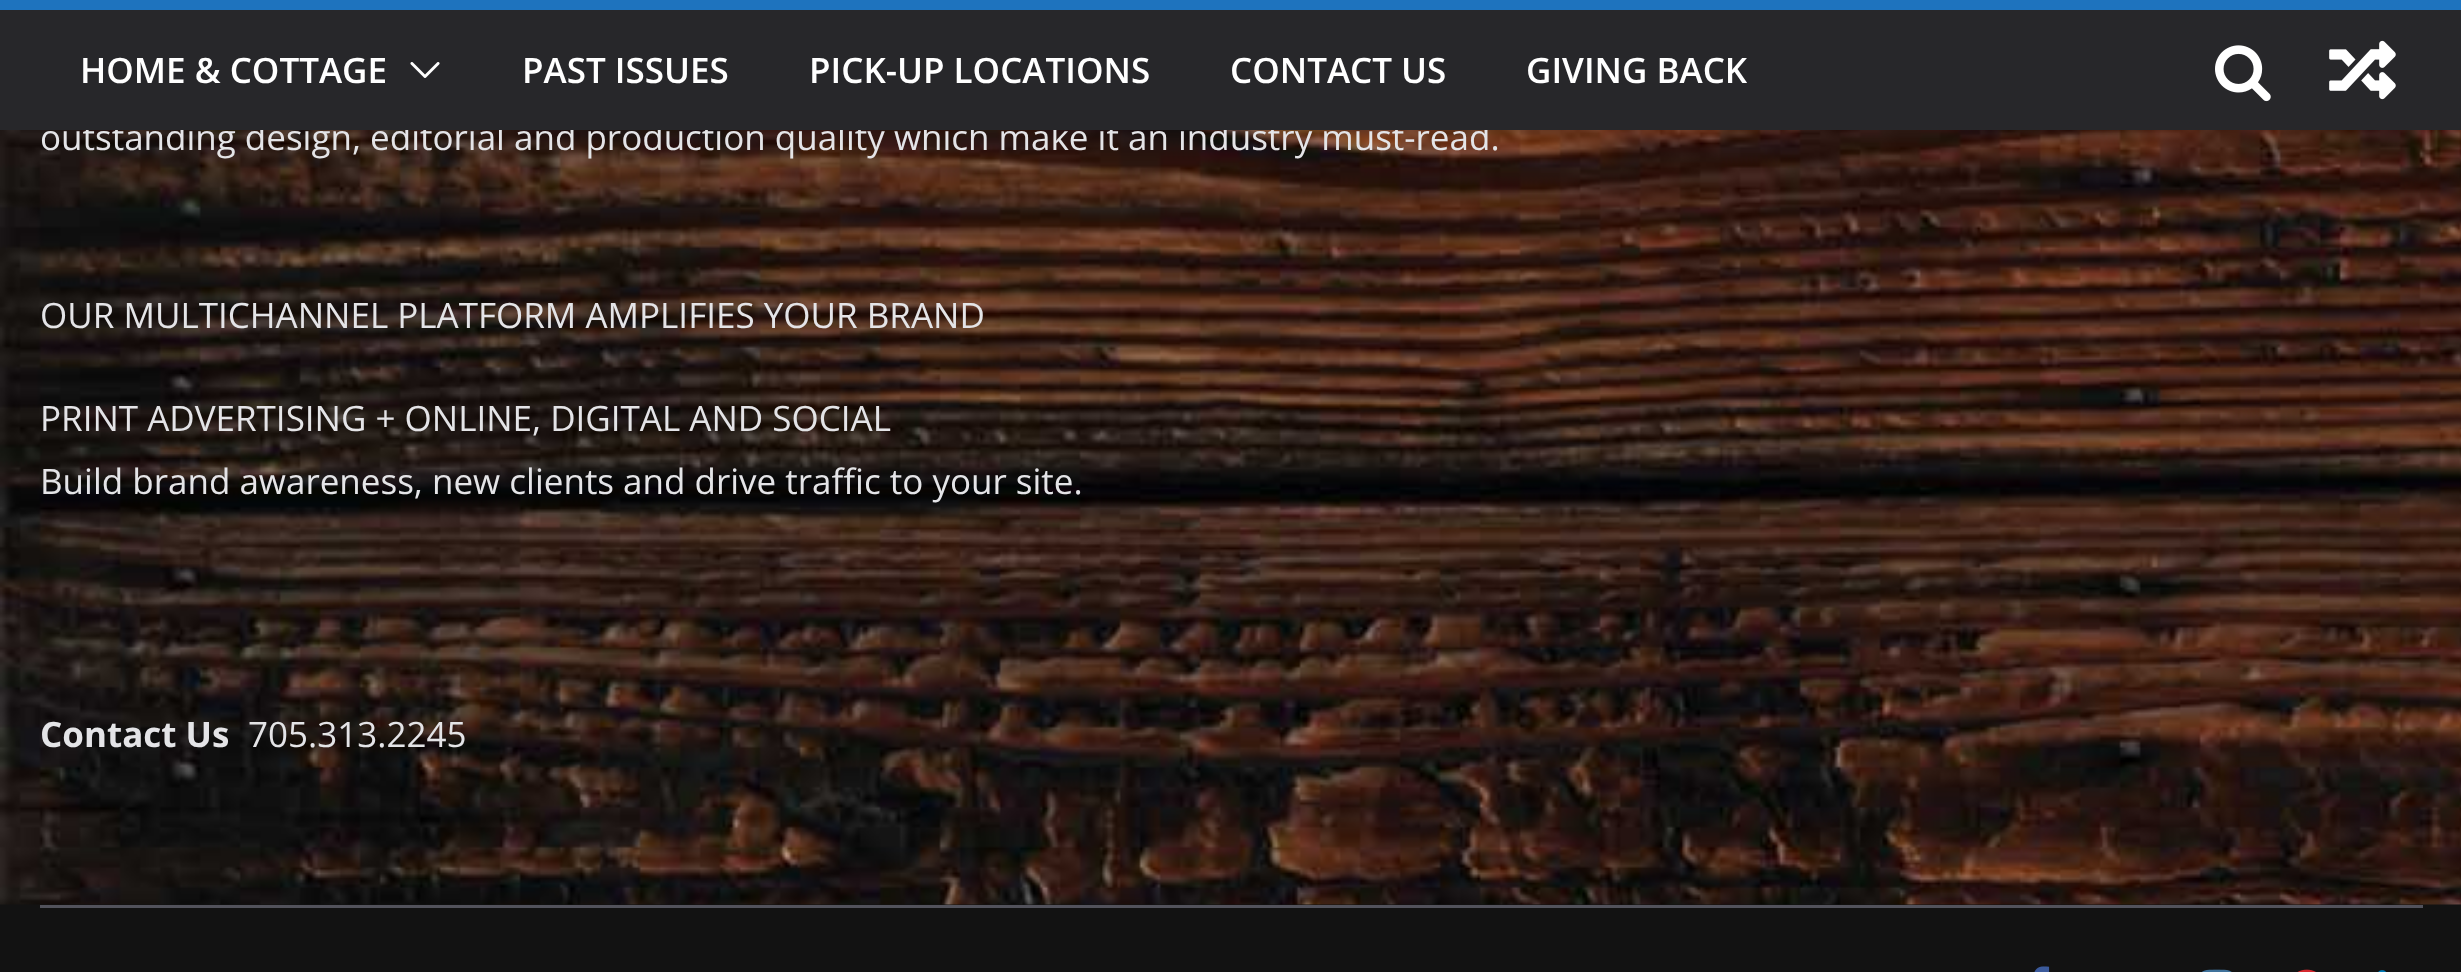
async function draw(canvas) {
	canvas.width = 2461;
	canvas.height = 972;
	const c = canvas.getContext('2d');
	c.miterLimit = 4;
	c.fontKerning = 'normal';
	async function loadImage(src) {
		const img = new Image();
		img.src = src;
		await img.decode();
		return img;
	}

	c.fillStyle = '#121212';
	c.fillRect(0, 0, 2461, 972);
	c.drawImage(await loadImage('img4.png'), 0, 130, 2461, 775);
	c.font = '35px Open Sans';
	c.fillStyle = '#e4e4e7';
	c.fillText('outstanding design, editorial and production quality which make it an industry must-read.', 40, 150);
	c.fillStyle = '#27272a';
	c.fillRect(0, 10, 2461, 120);
	c.fillStyle = '#1e73be';
	c.fillRect(0, 0, 2461, 10);
	c.font = '600 35px Open Sans';
	c.fillStyle = '#fff';
	c.fillText('HOME & COTTAGE', 80, 83);
	c.drawImage(await loadImage('img1.png'), 410, 62, 30, 16);
	for (const [text, x, y] of [
		['PAST ISSUES', 522, 83],
		['PICK-UP LOCATIONS', 809, 83],
		['CONTACT US', 1230, 83],
		['GIVING BACK', 1526, 83],
	]) {
		c.fillText(text, x, y);
	}
	c.drawImage(await loadImage('img2.png'), 2215, 45, 56, 57);
	c.drawImage(await loadImage('img3.png'), 2329, 40, 67, 60);
	c.font = '35px Open Sans';
	c.fillStyle = '#e4e4e7';
	for (const [text, x, y] of [
		['OUR MULTICHANNEL PLATFORM AMPLIFIES YOUR BRAND', 40, 328],
		['PRINT ADVERTISING + ONLINE, DIGITAL AND SOCIAL', 40, 431],
		['Build brand awareness, new clients and drive traffic to your site.', 40, 494],
	]) {
		c.fillText(text, x, y);
	}
	c.font = 'bold 35px Open Sans';
	c.fillText('Contact Us', 40, 747);
	c.font = '35px Open Sans';
	c.fillText('705.313.2245', 248, 747);
	c.fillStyle = '#52525b';
	c.fillRect(40, 905, 2383, 3);
	c.drawImage(await loadImage('img5.png'), 2034, 966, 16, 6);
	c.drawImage(await loadImage('img6.png'), 2202, 969, 30, 3);
	c.drawImage(await loadImage('img7.png'), 2297, 969, 19, 3);
	c.drawImage(await loadImage('img8.png'), 2378, 970, 8, 2);
}

draw(document.querySelector('canvas'));
